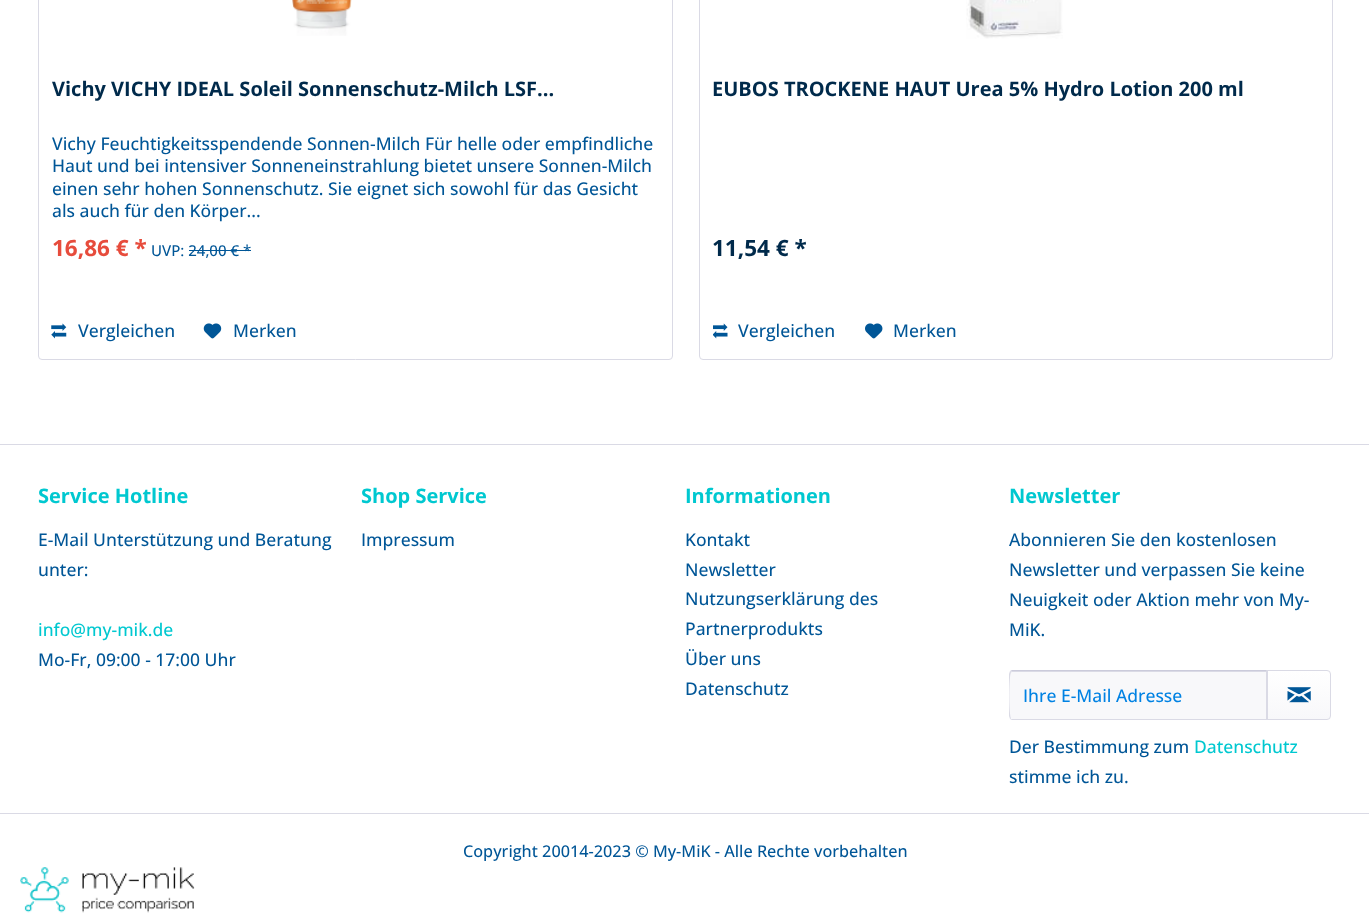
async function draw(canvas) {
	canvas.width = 1369;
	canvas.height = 919;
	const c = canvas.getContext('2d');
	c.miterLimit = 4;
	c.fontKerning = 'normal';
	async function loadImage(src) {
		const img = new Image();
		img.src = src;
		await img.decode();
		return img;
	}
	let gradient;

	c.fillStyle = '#fff';
	c.fillRect(0, 0, 1369, 919);
	c.beginPath();
	c.roundRect(38.5, -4.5, 634, 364, 3.5);
	c.strokeStyle = '#dadae5';
	c.stroke();
	c.drawImage(await loadImage('img1.png'), 292, 0, 60, 36);
	c.font = 'bold 20px Open Sans';
	c.fillStyle = '#002a4b';
	c.fillText('Vichy VICHY IDEAL Soleil Sonnenschutz-Milch LSF...', 52, 96);
	c.font = '500 17.5px Open Sans';
	c.fillStyle = '#005697';
	for (const [text, x, y] of [
		['Vichy Feuchtigkeitsspendende Sonnen-Milch Für helle oder empfindliche', 52, 150],
		['Haut und bei intensiver Sonneneinstrahlung bietet unsere Sonnen-Milch', 52, 172],
		['einen sehr hohen Sonnenschutz. Sie eignet sich sowohl für das Gesicht', 52, 195],
		['als auch für den Körper...', 52, 217],
	]) {
		c.fillText(text, x, y);
	}
	c.font = 'bold 22.5px Open Sans';
	c.fillStyle = '#e74c3c';
	c.fillText('16,86 € *', 52, 256);
	c.font = '500 15px Open Sans';
	c.fillStyle = '#005697';
	c.fillText('UVP: 24,00 € *', 151, 256);
	c.fillRect(189, 250, 62, 1);
	c.drawImage(await loadImage('img2.png'), 51, 323, 16, 16);
	c.font = '500 17.5px Open Sans';
	c.fillText('Vergleichen', 78, 337);
	c.drawImage(await loadImage('img3.png'), 203, 323, 19, 16);
	c.fillText('Merken', 233, 337);
	c.beginPath();
	c.roundRect(699.5, -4.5, 633, 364, 3.5);
	c.stroke();
	c.drawImage(await loadImage('img4.png'), 966, 0, 97, 39);
	c.font = 'bold 20px Open Sans';
	c.fillStyle = '#002a4b';
	c.fillText('EUBOS TROCKENE HAUT Urea 5% Hydro Lotion 200 ml', 712, 96);
	c.font = 'bold 22.5px Open Sans';
	c.fillText('11,54 € *', 712, 256);
	c.drawImage(await loadImage('img5.png'), 713, 323, 15, 16);
	c.font = '500 17.5px Open Sans';
	c.fillStyle = '#005697';
	c.fillText('Vergleichen', 738, 337);
	c.drawImage(await loadImage('img6.png'), 865, 323, 18, 16);
	c.fillText('Merken', 893, 337);
	c.fillStyle = '#dadae5';
	c.fillRect(0, 444, 1369, 1);
	c.fillRect(0, 813, 1369, 1);
	c.font = 'bold 20px Open Sans';
	c.fillStyle = '#00c8d0';
	c.fillText('Service Hotline', 38, 503);
	c.font = '500 17.5px Open Sans';
	c.fillStyle = '#005697';
	c.fillText('E-Mail Unterstützung und Beratung', 38, 546);
	c.fillText('unter:', 38, 576);
	c.fillStyle = '#00c8d0';
	c.fillText('info@my-mik.de', 38, 636);
	c.fillStyle = '#005697';
	c.fillText('Mo-Fr, 09:00 - 17:00 Uhr', 38, 666);
	c.font = 'bold 20px Open Sans';
	c.fillStyle = '#00c8d0';
	c.fillText('Shop Service', 361, 503);
	c.font = '500 17.5px Open Sans';
	c.fillStyle = '#005697';
	c.fillText('Impressum', 361, 546);
	c.font = 'bold 20px Open Sans';
	c.fillStyle = '#00c8d0';
	c.fillText('Informationen', 685, 503);
	c.font = '500 17.5px Open Sans';
	c.fillStyle = '#005697';
	for (const [text, x, y] of [
		['Kontakt', 685, 546],
		['Newsletter', 685, 576],
		['Nutzungserklärung des', 685, 605],
		['Partnerprodukts', 685, 635],
		['Über uns', 685, 665],
		['Datenschutz', 685, 695],
	]) {
		c.fillText(text, x, y);
	}
	c.font = 'bold 20px Open Sans';
	c.fillStyle = '#00c8d0';
	c.fillText('Newsletter', 1009, 503);
	c.font = '500 17.5px Open Sans';
	c.fillStyle = '#005697';
	for (const [text, x, y] of [
		['Abonnieren Sie den kostenlosen', 1009, 546],
		['Newsletter und verpassen Sie keine', 1009, 576],
		['Neuigkeit oder Aktion mehr von My-', 1009, 606],
		['MiK.', 1009, 636],
	]) {
		c.fillText(text, x, y);
	}
	c.fillStyle = '#f8f8fa';
	c.beginPath();
	c.roundRect(1010, 671, 256, 48, [2.5, 0, 0, 2.5]);
	c.fill();
	c.fillStyle = '#dadae5';
	c.beginPath();
	c.moveTo(1012, 672);
	c.lineTo(1266, 672);
	c.lineTo(1266, 671);
	c.lineTo(1012, 671);
	c.bezierCurveTo(1011, 671, 1010, 672, 1010, 674);
	c.lineTo(1010, 675);
	c.bezierCurveTo(1010, 674, 1011, 672, 1012, 672);
	c.closePath();
	c.fill();
	c.fillStyle = '#cbcbdb';
	c.beginPath();
	c.moveTo(1012, 670);
	c.lineTo(1010, 671);
	c.lineTo(1011, 672);
	c.lineTo(1011, 671);
	c.lineTo(1266, 671);
	c.lineTo(1266, 672);
	c.lineTo(1268, 670);
	c.closePath();
	c.fill();
	c.fillStyle = '#dadae5';
	c.beginPath();
	c.moveTo(1268, 670);
	c.lineTo(1268, 720);
	c.lineTo(1266, 718);
	c.lineTo(1266, 672);
	c.closePath();
	c.fill();
	c.beginPath();
	c.moveTo(1268, 720);
	c.lineTo(1266, 718);
	c.lineTo(1266, 719);
	c.lineTo(1011, 719);
	c.lineTo(1011, 718);
	c.lineTo(1010, 719);
	c.lineTo(1012, 720);
	c.closePath();
	c.fill();
	c.beginPath();
	c.moveTo(1010, 671);
	c.lineTo(1009, 674);
	c.lineTo(1009, 716);
	c.lineTo(1010, 719);
	c.lineTo(1011, 718);
	c.bezierCurveTo(1009, 716, 1009, 674, 1011, 672);
	c.closePath();
	c.fill();
	c.fillStyle = '#0082e3';
	c.fillText('Ihre E-Mail Adresse', 1023, 702);
	gradient = c.createLinearGradient(1299, 671, 1299, 719);
	gradient.addColorStop(0, '#fff');
	gradient.addColorStop(1, '#f8f8fa');
	c.fillStyle = gradient;
	c.beginPath();
	c.roundRect(1268, 671, 62, 48, [0, 2.5, 2.5, 0]);
	c.fill();
	c.beginPath();
	c.roundRect(1266.5, 670.5, 64, 49, [0, 3.5, 3.5, 0]);
	c.stroke();
	c.drawImage(await loadImage('img7.png'), 1287, 687, 24, 16);
	c.fillStyle = '#005697';
	c.fillText('Der Bestimmung zum', 1009, 753);
	c.fillStyle = '#00c8d0';
	c.fillText('Datenschutz', 1194, 753);
	c.fillStyle = '#005697';
	c.fillText('stimme ich zu.', 1009, 783);
	c.font = '500 16.25px Open Sans';
	c.fillText('Copyright 20014-2023 © My-MiK - Alle Rechte vorbehalten', 463, 857);
	c.drawImage(await loadImage('img8.png'), 20, 867, 175, 46);
}

draw(document.querySelector('canvas'));
